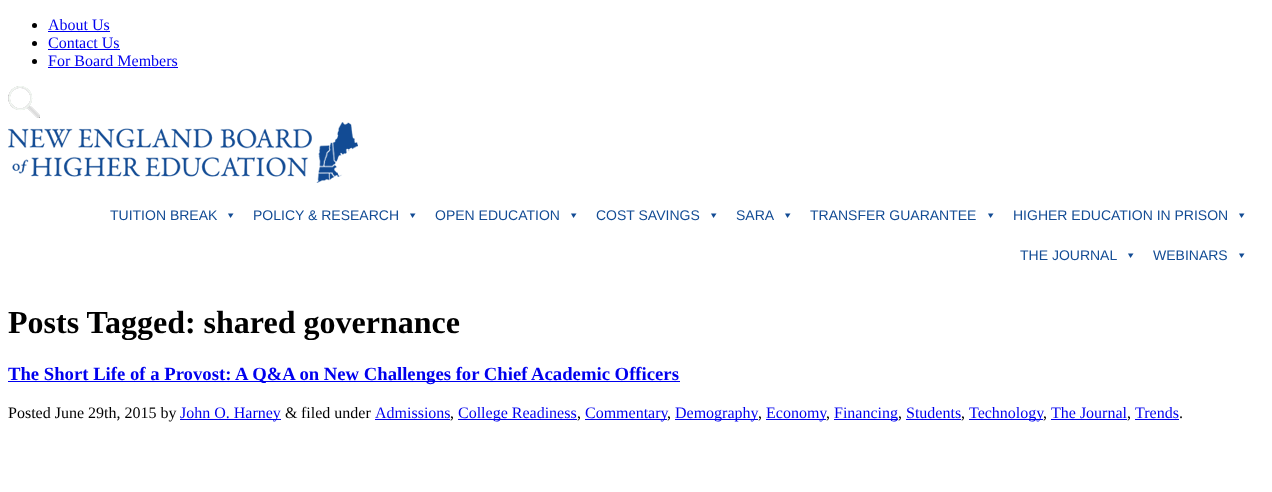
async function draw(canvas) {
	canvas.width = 1272;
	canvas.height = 492;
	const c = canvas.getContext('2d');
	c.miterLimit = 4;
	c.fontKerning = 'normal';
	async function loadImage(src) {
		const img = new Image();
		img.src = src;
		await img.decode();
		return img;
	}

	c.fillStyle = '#fff';
	c.fillRect(0, 0, 1272, 492);
	c.fillStyle = '#000';
	c.beginPath();
	c.arc(34.5, 25.5, 2.5, 0, 2 * Math.PI);
	c.fill();
	c.font = '16px Liberation Serif';
	c.fillStyle = '#00e';
	c.fillText('About Us', 48, 30);
	c.fillRect(48, 31, 62, 1);
	c.fillStyle = '#000';
	c.beginPath();
	c.arc(34.5, 43.5, 2.5, 0, 2 * Math.PI);
	c.fill();
	c.fillStyle = '#00e';
	c.fillText('Contact Us', 48, 48);
	c.fillRect(48, 49, 72, 1);
	c.fillStyle = '#000';
	c.beginPath();
	c.arc(34.5, 61.5, 2.5, 0, 2 * Math.PI);
	c.fill();
	c.fillStyle = '#00e';
	c.fillText('For Board Members', 48, 66);
	c.fillRect(48, 67, 130, 1);
	c.drawImage(await loadImage('img1.png'), 8, 86, 32, 32);
	c.drawImage(await loadImage('img2.png'), 8, 122, 350, 61);
	c.font = '14px Liberation Sans';
	c.fillStyle = '#124b94';
	c.fillText('TUITION BREAK', 110, 220);
	c.beginPath();
	c.moveTo(233.5, 213.5);
	c.lineTo(230.5, 218);
	c.lineTo(228, 213.5);
	c.closePath();
	c.fill();
	c.fillText('POLICY & RESEARCH', 253, 220);
	c.beginPath();
	c.moveTo(415.5, 213.5);
	c.lineTo(412.5, 218);
	c.lineTo(410, 213.5);
	c.closePath();
	c.fill();
	c.fillText('OPEN EDUCATION', 435, 220);
	c.beginPath();
	c.moveTo(576.5, 213.5);
	c.lineTo(573.5, 218);
	c.lineTo(571, 213.5);
	c.closePath();
	c.fill();
	c.fillText('COST SAVINGS', 596, 220);
	c.beginPath();
	c.moveTo(716.5, 213.5);
	c.lineTo(713.5, 218);
	c.lineTo(711, 213.5);
	c.closePath();
	c.fill();
	c.fillText('SARA', 736, 220);
	c.beginPath();
	c.moveTo(790.5, 213.5);
	c.lineTo(787.5, 218);
	c.lineTo(785, 213.5);
	c.closePath();
	c.fill();
	c.fillText('TRANSFER GUARANTEE', 810, 220);
	c.beginPath();
	c.moveTo(993.5, 213.5);
	c.lineTo(990.5, 218);
	c.lineTo(988, 213.5);
	c.closePath();
	c.fill();
	c.fillText('HIGHER EDUCATION IN PRISON', 1013, 220);
	c.beginPath();
	c.moveTo(1244.5, 213.5);
	c.lineTo(1241.5, 218);
	c.lineTo(1239, 213.5);
	c.closePath();
	c.fill();
	c.fillText('THE JOURNAL', 1020, 260);
	c.beginPath();
	c.moveTo(1133.5, 253.5);
	c.lineTo(1130.5, 258);
	c.lineTo(1128, 253.5);
	c.closePath();
	c.fill();
	c.fillText('WEBINARS', 1153, 260);
	c.beginPath();
	c.moveTo(1244.5, 253.5);
	c.lineTo(1241.5, 258);
	c.lineTo(1239, 253.5);
	c.closePath();
	c.fill();
	c.font = 'bold 32px Liberation Serif';
	c.fillStyle = '#000';
	c.fillText('Posts Tagged: shared governance', 8, 333);
	c.fillStyle = '#00e';
	c.fillRect(8, 381, 672, 1);
	c.font = 'bold 18.7px Liberation Serif';
	c.fillText('The Short Life of a Provost: A Q&A on New Challenges for Chief Academic Officers', 8, 380);
	c.font = '16px Liberation Serif';
	c.fillStyle = '#000';
	c.fillText('Posted June 29th, 2015 by', 8, 418);
	c.fillStyle = '#00e';
	c.fillRect(180, 419, 101, 1);
	c.fillText('John O. Harney', 180, 418);
	c.fillStyle = '#000';
	c.fillText('&', 285, 418);
	c.fillText('filed under', 301, 418);
	c.fillStyle = '#00e';
	c.fillText('Admissions', 375, 418);
	c.fillStyle = '#000';
	c.fillText(',', 450, 418);
	c.fillStyle = '#00e';
	c.fillRect(375, 419, 75, 1);
	c.fillRect(458, 419, 119, 1);
	c.fillText('College Readiness', 458, 418);
	c.fillStyle = '#000';
	c.fillText(',', 577, 418);
	c.fillStyle = '#00e';
	c.fillRect(585, 419, 82, 1);
	c.fillText('Commentary', 585, 418);
	c.fillRect(675, 419, 83, 1);
	c.fillText('Demography', 675, 418);
	c.fillRect(766, 419, 60, 1);
	c.fillText('Economy', 766, 418);
	c.fillRect(834, 419, 64, 1);
	c.fillText('Financing', 834, 418);
	c.fillText('Students', 906, 418);
	c.fillRect(969, 419, 74, 1);
	for (const [text, x, y] of [
		['Technology', 969, 418],
		['The Journal', 1051, 418],
		['Trends', 1135, 418],
	]) {
		c.fillText(text, x, y);
	}
	c.fillStyle = '#000';
	for (const [text, x, y] of [
		[',', 667, 418],
		[',', 758, 418],
		[',', 826, 418],
		[',', 898, 418],
		[',', 961, 418],
	]) {
		c.fillText(text, x, y);
	}
	c.fillStyle = '#00e';
	c.fillRect(906, 419, 55, 1);
	c.fillStyle = '#000';
	c.fillText(',', 1043, 418);
	c.fillText(',', 1127, 418);
	c.fillStyle = '#00e';
	c.fillRect(1051, 419, 76, 1);
	c.fillRect(1135, 419, 44, 1);
	c.fillStyle = '#000';
	c.fillText('.', 1179, 418);
}

draw(document.querySelector('canvas'));
